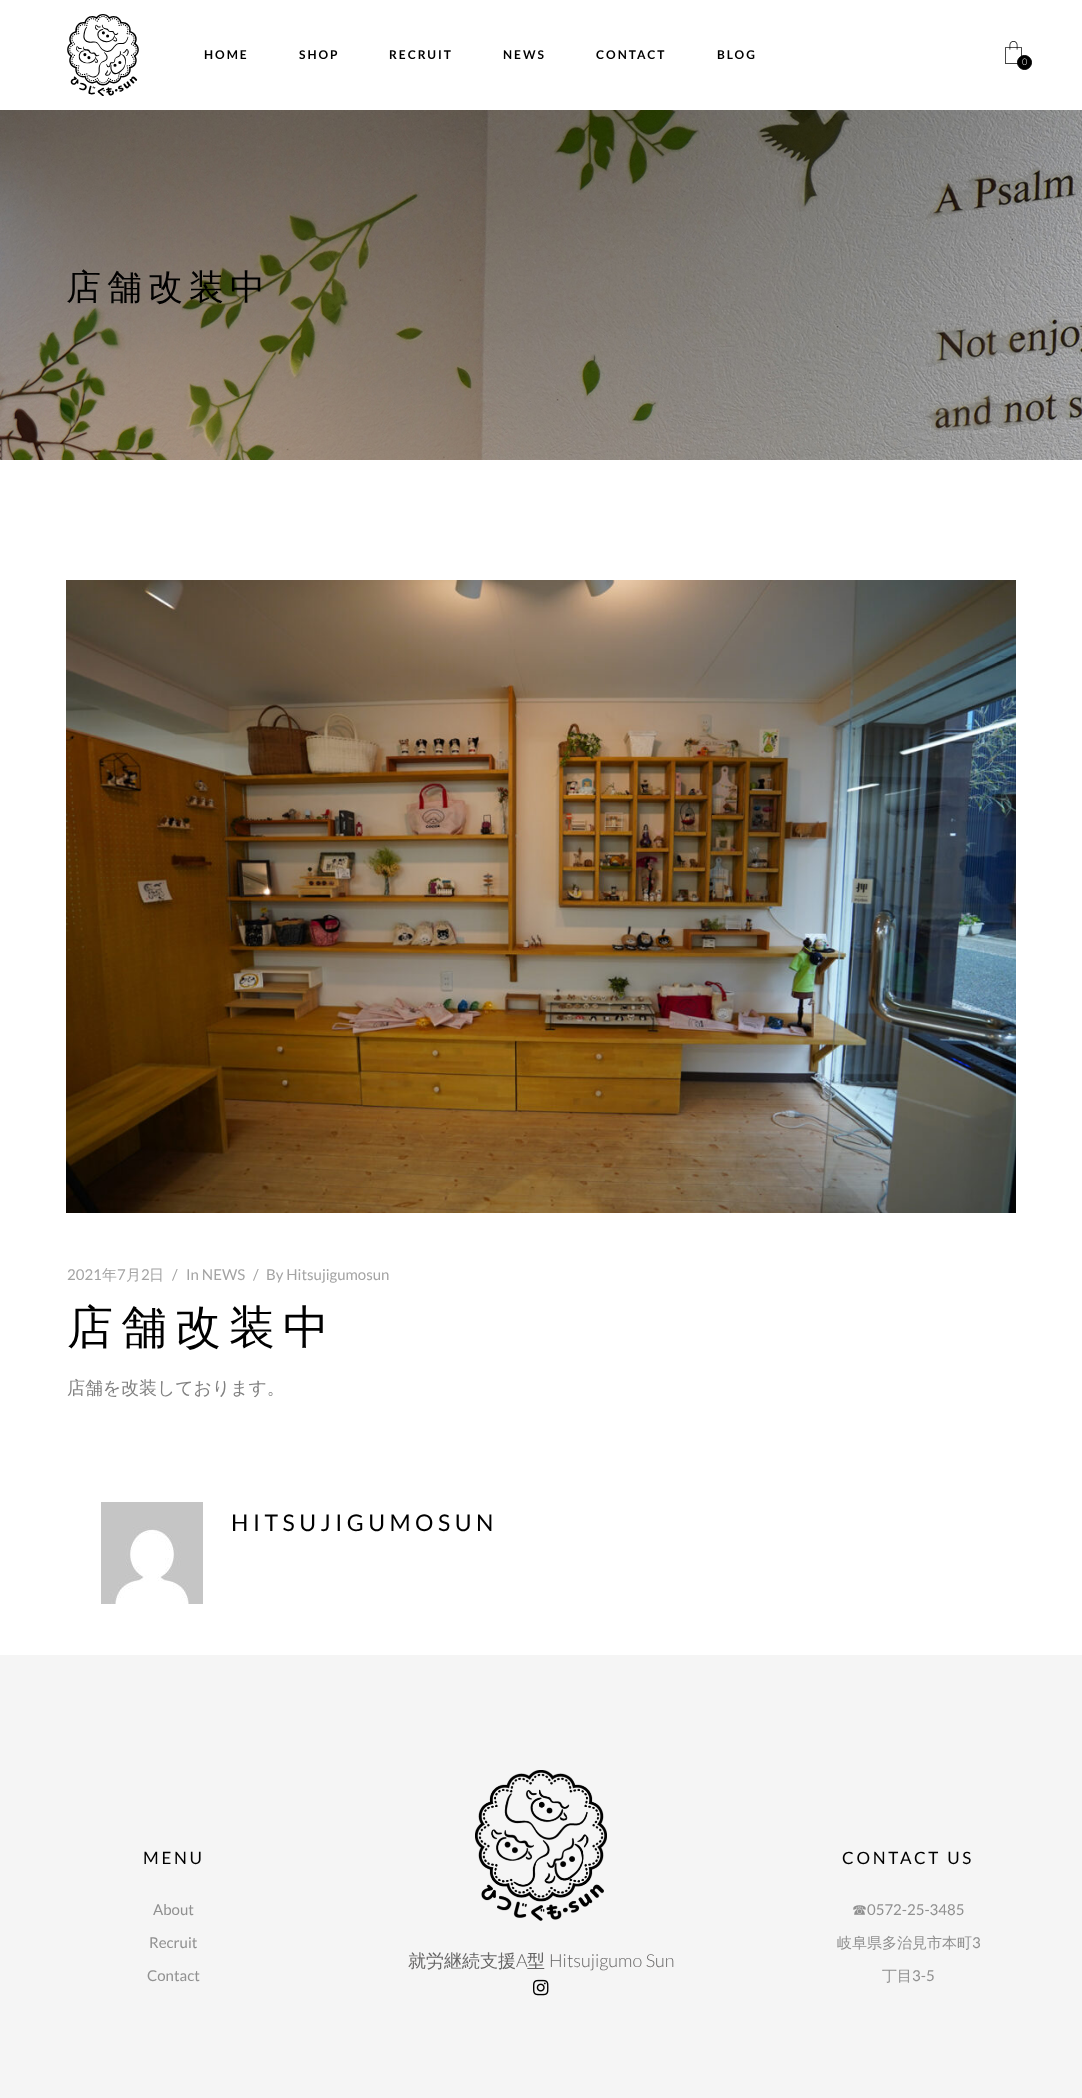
async function draw(canvas) {
	canvas.width = 1082;
	canvas.height = 2098;
	const c = canvas.getContext('2d');
	c.miterLimit = 4;
	c.fontKerning = 'normal';
	async function loadImage(src) {
		const img = new Image();
		img.src = src;
		await img.decode();
		return img;
	}

	c.fillStyle = '#fff';
	c.fillRect(0, 0, 1082, 2098);
	c.drawImage(await loadImage('img1.png'), 67, 14, 72, 82);
	c.letterSpacing = '2px';
	c.font = 'bold 12px Lato';
	c.fillStyle = '#000';
	for (const [text, x, y] of [
		['HOME', 204, 59],
		['SHOP', 299, 59],
		['RECRUIT', 389, 59],
		['NEWS', 503, 59],
		['CONTACT', 596, 59],
		['BLOG', 717, 59],
	]) {
		c.fillText(text, x, y);
	}
	c.drawImage(await loadImage('img2.png'), 1005, 41, 17, 23);
	c.beginPath();
	c.arc(1024.5, 62.5, 7, 0, 2 * Math.PI);
	c.fill();
	c.strokeStyle = '#000';
	c.stroke();
	c.letterSpacing = '0px';
	c.font = '300 9px Lato';
	c.fillStyle = '#fff';
	c.fillText('0', 1022, 65);
	c.drawImage(await loadImage('img3.png'), 0, 110, 1082, 350);
	c.letterSpacing = '6px';
	c.font = '500 35px WenQuanYi Zen Hei';
	c.fillStyle = '#000';
	c.fillText('店舗改装中', 66, 299);
	c.drawImage(await loadImage('img4.png'), 66, 580, 950, 633);
	c.letterSpacing = '0px';
	c.font = '15px Lato';
	c.fillStyle = '#a4a4a4';
	c.fillText('2021', 67, 1280);
	c.font = '500 15px WenQuanYi Zen Hei';
	c.fillText('年', 102, 1280);
	c.font = '15px Lato';
	c.fillText('7', 117, 1280);
	c.font = '500 15px WenQuanYi Zen Hei';
	c.fillText('月', 126, 1280);
	c.font = '15px Lato';
	c.fillText('2', 141, 1280);
	c.font = '500 15px WenQuanYi Zen Hei';
	c.fillText('日', 149, 1280);
	c.font = '15px Lato';
	for (const [text, x, y] of [
		['/', 172, 1280],
		['In NEWS', 186, 1280],
		['/', 253, 1280],
		['By Hitsujigumosun', 266, 1280],
	]) {
		c.fillText(text, x, y);
	}
	c.letterSpacing = '8px';
	c.font = '500 46px WenQuanYi Zen Hei';
	c.fillStyle = '#000';
	c.fillText('店舗改装中', 67, 1343);
	c.letterSpacing = '-0.1px';
	c.font = '500 18px WenQuanYi Zen Hei';
	c.fillStyle = '#808080';
	c.fillText('店舗を改装しております。', 67, 1394);
	c.drawImage(await loadImage('img5.png'), 101, 1502, 102, 102);
	c.letterSpacing = '4.5px';
	c.font = '23px Lato';
	c.fillStyle = '#000';
	c.fillText('HITSUJIGUMOSUN', 231, 1531);
	c.fillStyle = '#f5f5f5';
	c.fillRect(0, 1655, 1082, 443);
	c.letterSpacing = '2.75px';
	c.font = '17px Lato';
	c.fillStyle = '#000';
	c.fillText('MENU', 143, 1864);
	c.letterSpacing = '0px';
	c.font = '15px Lato';
	c.fillStyle = '#909090';
	for (const [text, x, y] of [
		['About', 153, 1915],
		['Recruit', 149, 1948],
		['Contact', 147, 1981],
	]) {
		c.fillText(text, x, y);
	}
	c.drawImage(await loadImage('img6.png'), 475, 1770, 132, 151);
	c.font = '500 18px WenQuanYi Zen Hei';
	c.fillStyle = '#666565';
	c.fillText('就労継続支援', 408, 1967);
	c.font = '300 18px Lato';
	c.fillText('A', 516, 1967);
	c.font = '500 18px WenQuanYi Zen Hei';
	c.fillText('型', 527, 1967);
	c.font = '300 18px Lato';
	c.fillText('Hitsujigumo Sun', 549, 1967);
	c.drawImage(await loadImage('img7.png'), 533, 1979, 16, 17);
	c.letterSpacing = '2.75px';
	c.font = '17px Lato';
	c.fillStyle = '#000';
	c.fillText('CONTACT US', 842, 1864);
	c.letterSpacing = '0px';
	c.font = '500 15px WenQuanYi Zen Hei';
	c.fillStyle = '#909090';
	c.fillText('☎︎', 852, 1915);
	c.font = '15px Lato';
	c.fillText('0572-25-3485', 867, 1915);
	c.font = '500 15px WenQuanYi Zen Hei';
	c.fillText('岐阜県多治見市本町', 837, 1948);
	c.font = '15px Lato';
	c.fillText('3', 972, 1948);
	c.font = '500 15px WenQuanYi Zen Hei';
	c.fillText('丁目', 882, 1981);
	c.font = '15px Lato';
	c.fillText('3-5', 912, 1981);
}

draw(document.querySelector('canvas'));
